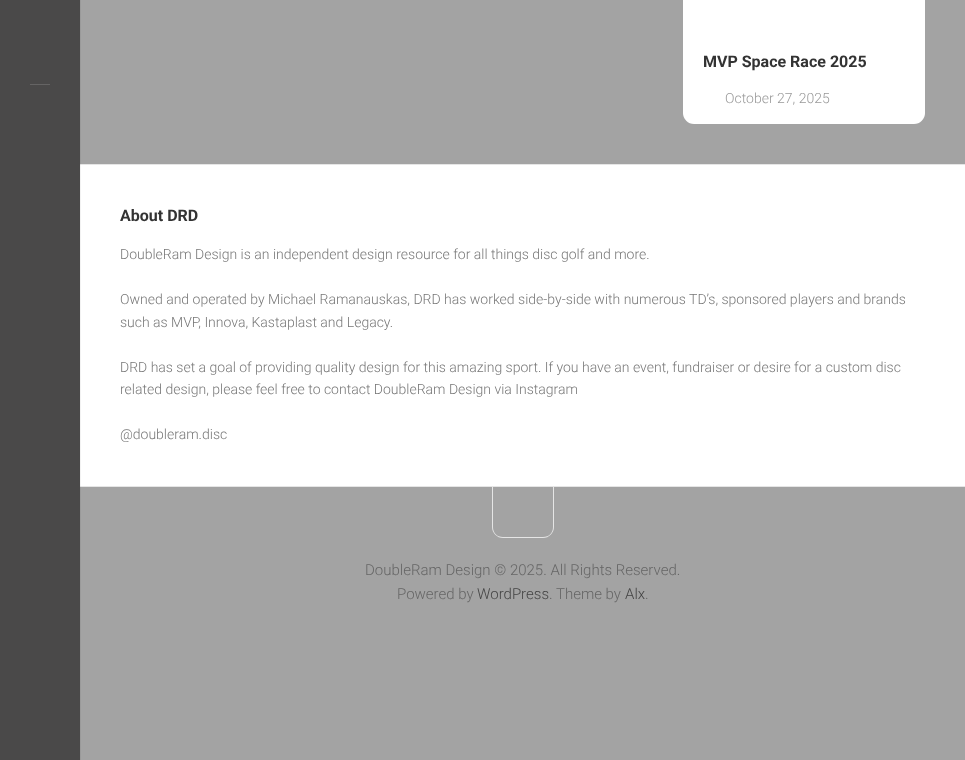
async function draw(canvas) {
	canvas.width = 965;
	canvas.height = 760;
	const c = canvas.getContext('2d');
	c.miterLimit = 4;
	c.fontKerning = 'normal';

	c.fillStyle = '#a3a3a3';
	c.fillRect(0, 0, 965, 760);
	for (const [x, y, w, h, color] of [
		[80, 165, 885, 321, '#fff'],
		[80, 164, 885, 1, '#e5e5e5'],
		[80, 486, 885, 1, '#e5e5e5'],
		[80, 0, 1, 760, '#0000000d'],
		[0, 0, 80, 760, '#4a4949'],
		[30, 84, 20, 1, '#656464'],
	]) {
		c.fillStyle = color;
		c.fillRect(x, y, w, h);
	}
	c.fillStyle = '#fff';
	c.beginPath();
	c.roundRect(683, -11, 242, 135, 11);
	c.fill();
	c.font = 'bold 16px Roboto';
	c.fillStyle = '#333';
	c.fillText('MVP Space Race 2025', 703, 67);
	c.font = '300 14px Roboto';
	c.fillStyle = '#999';
	c.fillText('October 27, 2025', 725, 103);
	c.font = 'bold 16px Roboto';
	c.fillStyle = '#333';
	c.fillText('About DRD', 120, 221);
	c.font = '300 14px Roboto';
	c.fillStyle = '#777';
	for (const [text, x, y] of [
		['DoubleRam Design is an independent design resource for all things disc golf and more.', 120, 259],
		['Owned and operated by Michael Ramanauskas, DRD has worked side-by-side with numerous TD’s, sponsored players and brands', 120, 304],
		['such as MVP, Innova, Kastaplast and Legacy.', 120, 327],
		['DRD has set a goal of providing quality design for this amazing sport. If you have an event, fundraiser or desire for a custom disc', 120, 372],
		['related design, please feel free to contact DoubleRam Design via Instagram', 120, 394],
		['@doubleram.disc', 120, 439],
	]) {
		c.fillText(text, x, y);
	}
	c.fillStyle = '#e5e5e5';
	c.beginPath();
	c.moveTo(492, 487);
	c.lineTo(554, 487);
	c.lineTo(554, 527);
	c.bezierCurveTo(554, 533, 549, 538, 543, 538);
	c.lineTo(503, 538);
	c.bezierCurveTo(497, 538, 492, 533, 492, 527);
	c.closePath();
	c.moveTo(493, 487);
	c.lineTo(553, 487);
	c.lineTo(553, 527);
	c.bezierCurveTo(553, 533, 549, 537, 543, 537);
	c.lineTo(503, 537);
	c.bezierCurveTo(497, 537, 493, 533, 493, 527);
	c.closePath();
	c.fill('evenodd');
	c.font = '300 15px Roboto';
	c.fillStyle = '#666';
	c.fillText('DoubleRam Design © 2025. All Rights Reserved.', 365, 575);
	c.fillText('Powered by', 397, 599);
	c.fillStyle = '#444';
	c.fillText('WordPress', 477, 599);
	c.fillStyle = '#666';
	c.fillText('. Theme by', 549, 599);
	c.fillStyle = '#444';
	c.fillText('Alx', 625, 599);
	c.fillStyle = '#666';
	c.fillText('.', 645, 599);
}

draw(document.querySelector('canvas'));
